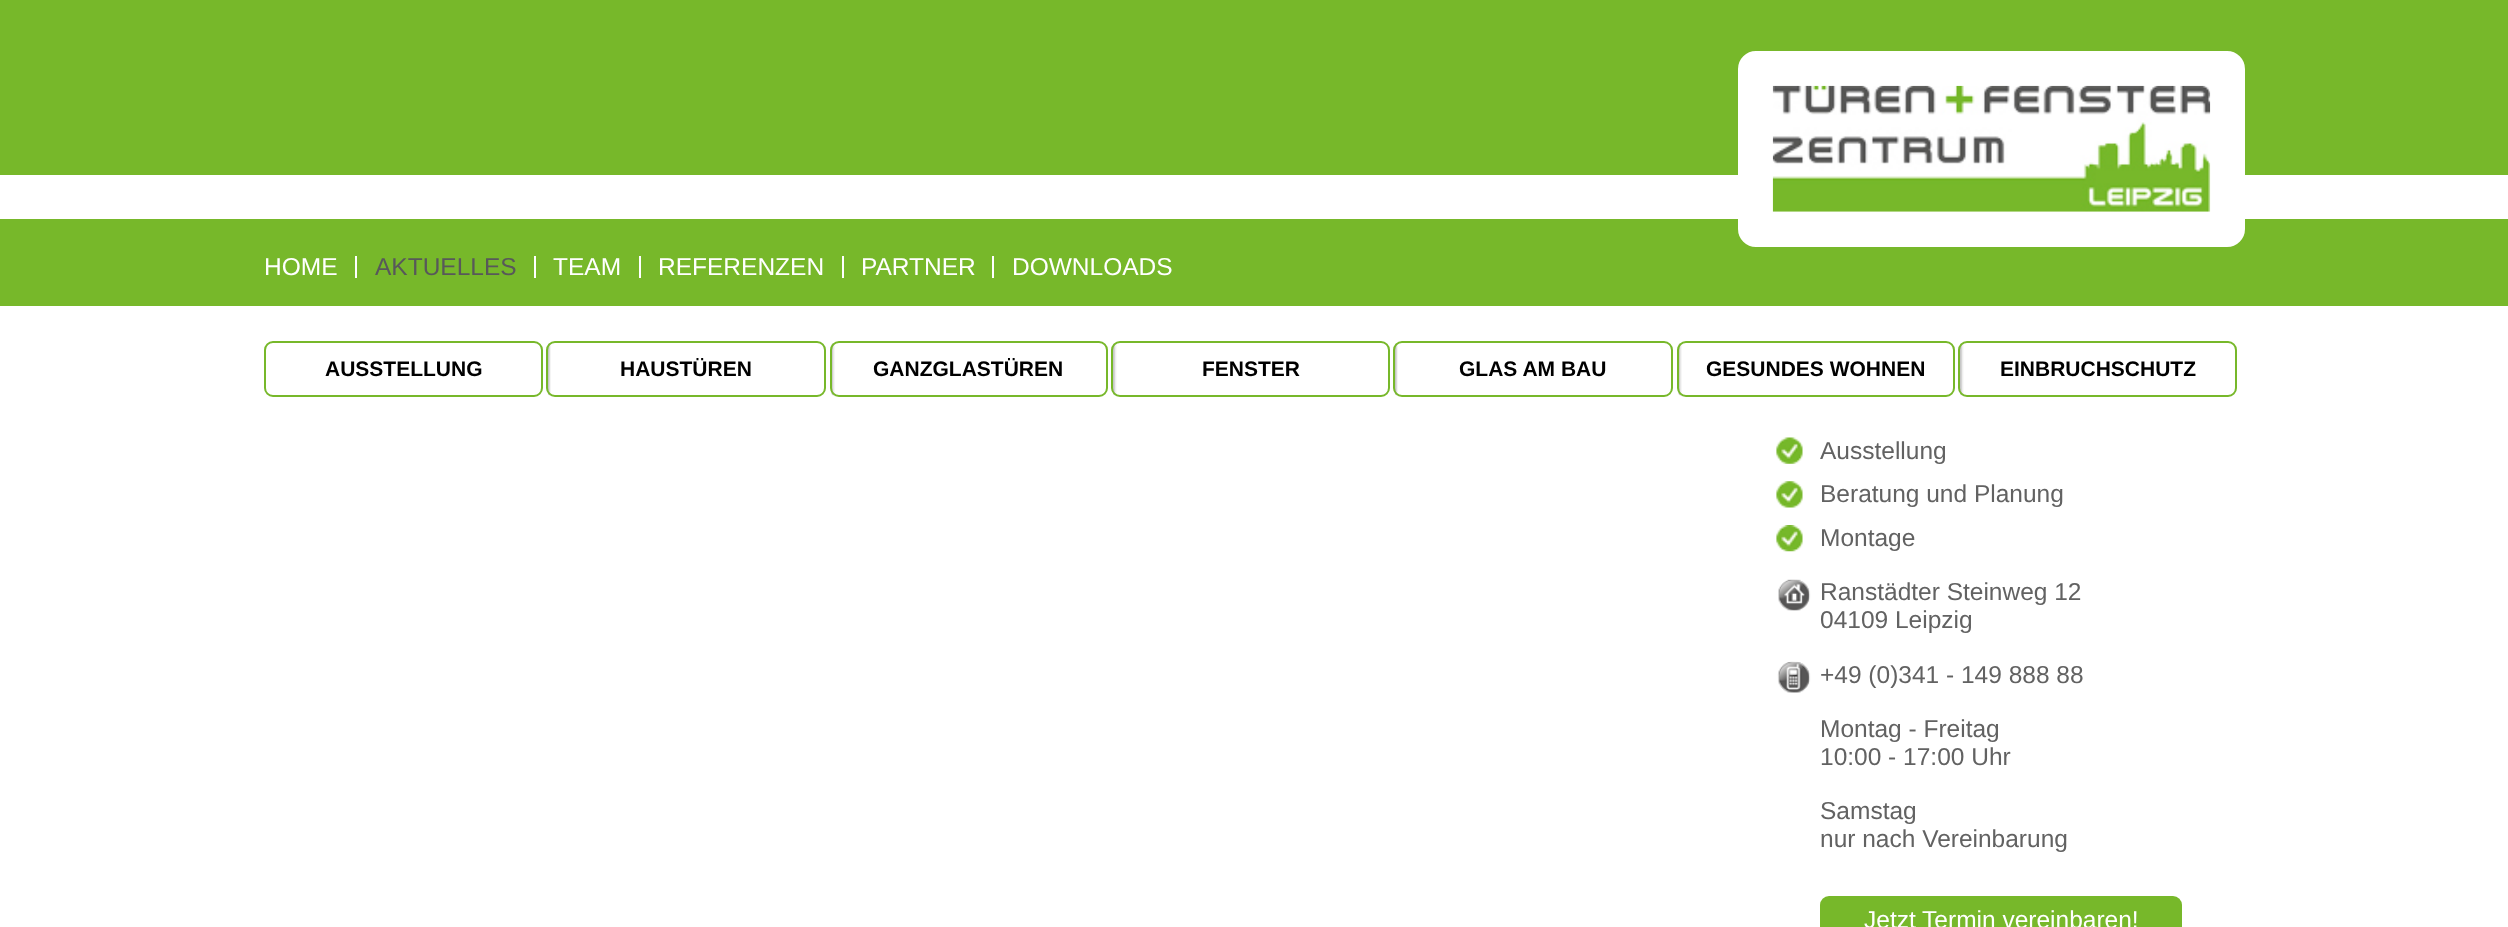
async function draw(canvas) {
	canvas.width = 2508;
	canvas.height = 927;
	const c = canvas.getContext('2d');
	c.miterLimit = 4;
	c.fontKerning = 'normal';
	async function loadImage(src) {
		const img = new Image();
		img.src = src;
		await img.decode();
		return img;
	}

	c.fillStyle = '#fff';
	c.fillRect(0, 0, 2508, 927);
	c.fillStyle = '#77b82a';
	c.fillRect(0, 0, 2508, 306);
	c.fillStyle = '#fff';
	c.fillRect(0, 175, 2508, 44);
	c.beginPath();
	c.roundRect(1755.5, 68.5, 472, 161, 0.5);
	c.strokeStyle = '#fff';
	c.lineWidth = 35;
	c.stroke();
	c.drawImage(await loadImage('img1.png'), 1772, 85, 439, 127);
	c.fillRect(355, 256, 2, 22);
	c.font = '24.5px Liberation Sans';
	c.fillText('HOME', 264, 275);
	c.fillRect(534, 256, 2, 22);
	c.fillStyle = '#58585a';
	c.fillText('AKTUELLES', 375, 275);
	c.fillStyle = '#fff';
	c.fillRect(639, 256, 2, 22);
	c.fillText('TEAM', 553, 275);
	c.fillRect(842, 256, 2, 22);
	c.fillText('REFERENZEN', 658, 275);
	c.fillRect(992, 256, 2, 22);
	c.fillText('PARTNER', 861, 275);
	c.fillText('DOWNLOADS', 1012, 275);
	c.beginPath();
	c.roundRect(265, 342, 277, 54, 8);
	c.strokeStyle = '#77b82a';
	c.lineWidth = 2;
	c.stroke();
	c.font = 'bold 21px Liberation Sans';
	c.fillStyle = '#000';
	c.fillText('AUSSTELLUNG', 325, 376);
	c.drawImage(await loadImage('img2.png'), 547, 343, 4, 53);
	c.beginPath();
	c.roundRect(547, 342, 278, 54, 8);
	c.stroke();
	c.fillText('HAUSTÜREN', 620, 376);
	c.drawImage(await loadImage('img3.png'), 831, 343, 4, 54);
	c.beginPath();
	c.roundRect(831, 342, 276, 54, 8);
	c.stroke();
	c.fillText('GANZGLASTÜREN', 873, 376);
	c.drawImage(await loadImage('img4.png'), 1113, 343, 4, 53);
	c.beginPath();
	c.roundRect(1112, 342, 277, 54, 8);
	c.stroke();
	c.fillText('FENSTER', 1202, 376);
	c.drawImage(await loadImage('img5.png'), 1394, 343, 4, 53);
	c.beginPath();
	c.roundRect(1394, 342, 278, 54, 8);
	c.stroke();
	c.fillText('GLAS AM BAU', 1459, 376);
	c.drawImage(await loadImage('img3.png'), 1678, 343, 4, 54);
	c.beginPath();
	c.roundRect(1678, 342, 276, 54, 8);
	c.stroke();
	c.fillText('GESUNDES WOHNEN', 1706, 376);
	c.drawImage(await loadImage('img4.png'), 1960, 343, 4, 53);
	c.beginPath();
	c.roundRect(1959, 342, 277, 54, 8);
	c.stroke();
	c.fillText('EINBRUCHSCHUTZ', 2000, 376);
	c.drawImage(await loadImage('img6.png'), 1776, 437, 27, 27);
	c.font = '24.5px Liberation Sans';
	c.fillStyle = '#626262';
	c.fillText('Ausstellung', 1820, 459);
	c.drawImage(await loadImage('img7.png'), 1776, 481, 27, 27);
	c.fillText('Beratung und Planung', 1820, 502);
	c.drawImage(await loadImage('img8.png'), 1776, 525, 27, 27);
	c.fillText('Montage', 1820, 546);
	c.drawImage(await loadImage('img9.png'), 1778, 579, 33, 32);
	c.fillText('Ranstädter Steinweg 12', 1820, 600);
	c.fillText('04109 Leipzig', 1820, 628);
	c.drawImage(await loadImage('img10.png'), 1777, 661, 34, 32);
	for (const [text, x, y] of [
		['+49 (0)341 - 149 888 88', 1820, 683],
		['Montag - Freitag', 1820, 737],
		['10:00 - 17:00 Uhr', 1820, 765],
		['Samstag', 1820, 819],
		['nur nach Vereinbarung', 1820, 847],
	]) {
		c.fillText(text, x, y);
	}
	c.fillStyle = '#77b82a';
	c.beginPath();
	c.roundRect(1820, 896, 362, 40, 9);
	c.fill();
	c.fillStyle = '#fff';
	c.fillText('Jetzt Termin vereinbaren!', 1864, 928);
}

draw(document.querySelector('canvas'));
